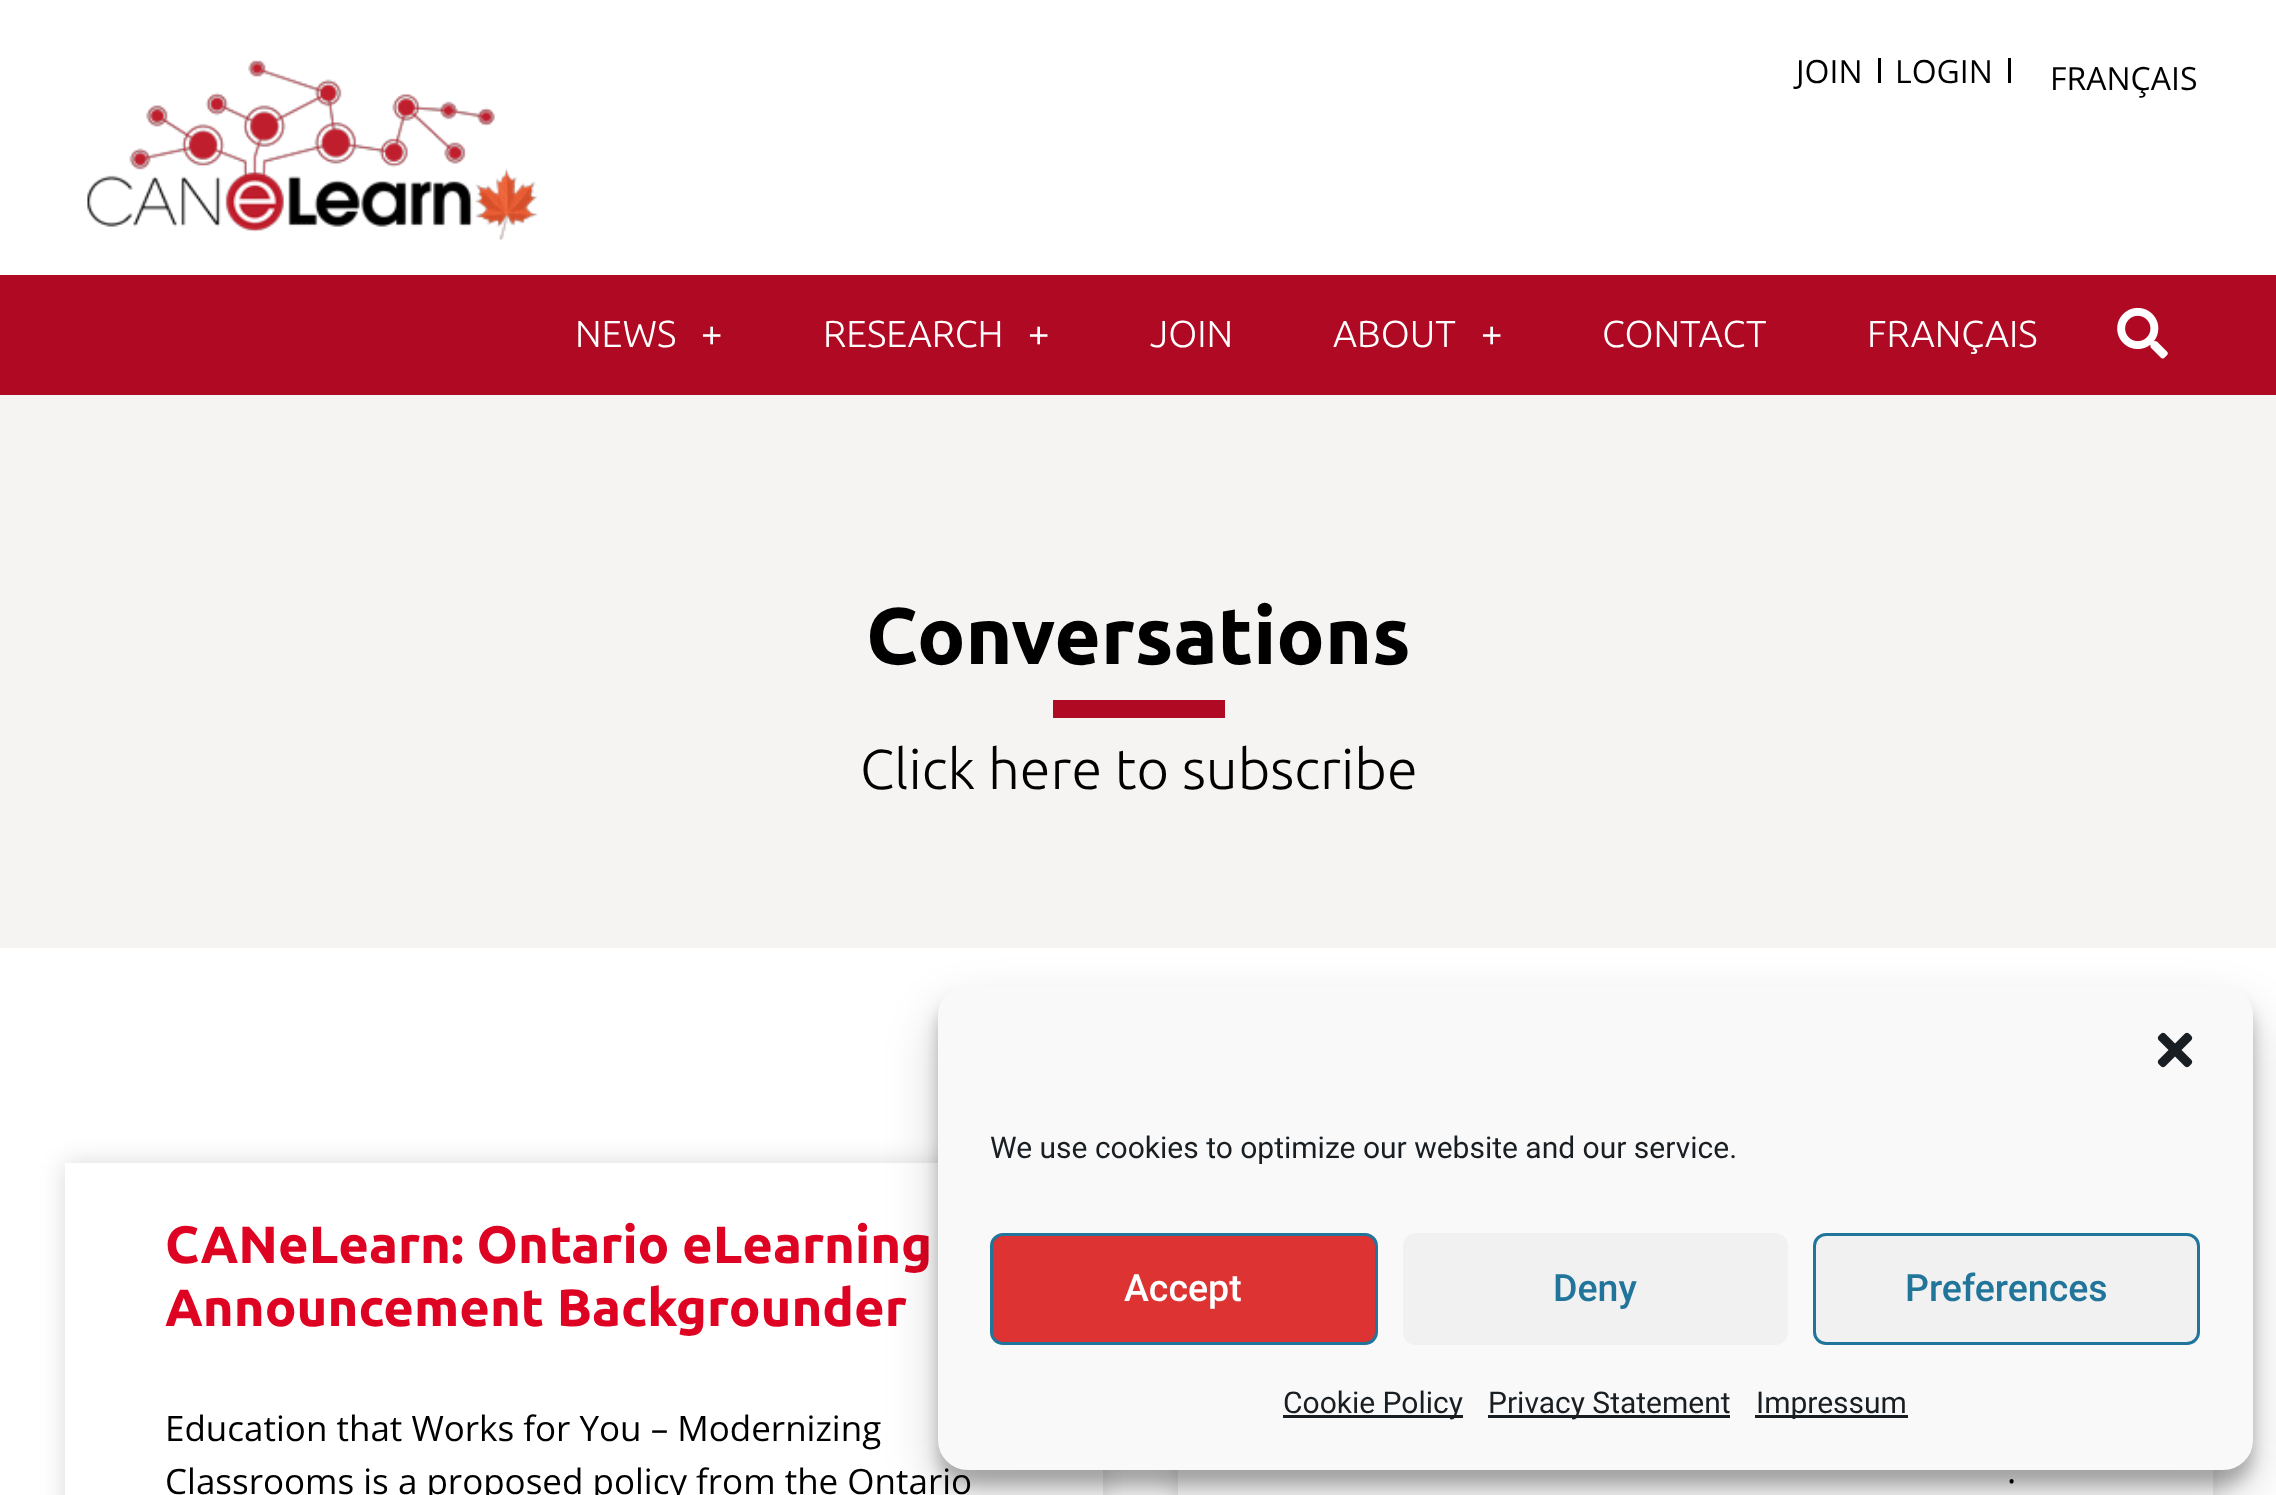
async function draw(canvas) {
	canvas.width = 2276;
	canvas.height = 1495;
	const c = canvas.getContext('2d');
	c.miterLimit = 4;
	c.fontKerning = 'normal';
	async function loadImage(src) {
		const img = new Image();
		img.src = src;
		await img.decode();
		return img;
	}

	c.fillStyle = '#fff';
	c.fillRect(0, 0, 2276, 1495);
	c.drawImage(await loadImage('img1.png'), 86, 60, 452, 180);
	c.fillStyle = '#000';
	c.fillRect(1878, 58, 3, 25);
	c.font = '32px Open Sans';
	c.fillText('JOIN', 1796, 83);
	c.fillRect(2008, 58, 3, 25);
	c.fillText('LOGIN', 1895, 83);
	c.fillText('FRANÇAIS', 2050, 90);
	c.fillStyle = '#af0923';
	c.fillRect(0, 275, 2276, 120);
	c.font = '300 37.5px Ubuntu';
	c.fillStyle = '#fff';
	c.fillText('NEWS', 575, 347);
	c.font = 'bold 37.5px Liberation Serif';
	c.fillText('+', 701, 348);
	c.font = '300 37.5px Ubuntu';
	c.fillText('RESEARCH', 823, 347);
	c.font = 'bold 37.5px Liberation Serif';
	c.fillText('+', 1028, 348);
	c.font = '300 37.5px Ubuntu';
	c.fillText('JOIN', 1150, 347);
	c.fillText('ABOUT', 1333, 347);
	c.font = 'bold 37.5px Liberation Serif';
	c.fillText('+', 1481, 348);
	c.font = '300 37.5px Ubuntu';
	c.fillText('CONTACT', 1602, 347);
	c.fillText('FRANÇAIS', 1867, 347);
	c.drawImage(await loadImage('img2.png'), 2117, 307, 51, 52);
	c.fillStyle = '#f6f4f3';
	c.fillRect(0, 395, 2276, 553);
	c.font = 'bold 80px Ubuntu';
	c.fillStyle = '#000';
	c.fillText('Conversations', 866, 664);
	c.fillStyle = '#af0923';
	c.fillRect(1053, 700, 172, 18);
	c.font = '300 56px Ubuntu';
	c.fillStyle = '#000';
	c.fillText('Click here to subscribe', 860, 789);
	c.fillStyle = '#00000026';
	c.filter = 'blur(12.5px)';
	c.beginPath();
	c.rect(65, 1163, 1038, 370);
	c.fill();
	c.filter = 'none';
	c.fillStyle = '#fff';
	c.fillRect(65, 1163, 1038, 332);
	c.font = 'bold 52.5px Ubuntu';
	c.fillStyle = '#de0322';
	c.fillText('CANeLearn: Ontario eLearning', 165, 1263);
	c.fillText('Announcement Backgrounder', 165, 1326);
	c.font = '35px Open Sans';
	c.fillStyle = '#000';
	c.fillText('Education that Works for You – Modernizing', 165, 1441);
	c.fillText('Classrooms is a proposed policy from the Ontario', 165, 1494);
	c.fillStyle = '#00000026';
	c.filter = 'blur(12.5px)';
	c.beginPath();
	c.rect(1178, 1163, 1035, 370);
	c.fill();
	c.filter = 'none';
	c.fillStyle = '#fff';
	c.fillRect(1178, 1470, 1035, 25);
	c.fillStyle = '#000';
	c.fillText('.', 2007, 1483);
	c.fillStyle = '#0000003b';
	c.filter = 'blur(7.5px)';
	c.beginPath();
	c.roundRect(938, 1000, 1315, 485, 30);
	c.fill();
	c.filter = 'none';
	c.fillStyle = '#00000030';
	c.filter = 'blur(25px)';
	c.beginPath();
	c.roundRect(938, 1010, 1315, 485, 30);
	c.fill();
	c.filter = 'none';
	c.fillStyle = '#f9f9f9';
	c.beginPath();
	c.roundRect(939.5, 986.5, 1312, 482, 28.5);
	c.fill();
	c.strokeStyle = '#f9f9f9';
	c.lineWidth = 3;
	c.stroke();
	c.drawImage(await loadImage('img3.png'), 2157, 1032, 36, 36);
	c.font = '30px Roboto';
	c.fillStyle = '#191e23';
	c.fillText('We use cookies to optimize our website and our service.', 990, 1158);
	c.fillStyle = '#d33';
	c.beginPath();
	c.roundRect(991.5, 1234.5, 385, 109, 11.5);
	c.fill();
	c.strokeStyle = '#21759b';
	c.stroke();
	c.font = '500 37.5px Roboto';
	c.fillStyle = '#fff';
	c.fillText('Accept', 1124, 1301);
	c.fillStyle = '#f1f1f1';
	c.beginPath();
	c.roundRect(1403, 1233, 385, 112, 13);
	c.fill();
	c.fillStyle = '#21759b';
	c.fillText('Deny', 1553, 1301);
	c.fillStyle = '#f1f1f1';
	c.beginPath();
	c.roundRect(1814.5, 1234.5, 384, 109, 11.5);
	c.fill();
	c.stroke();
	c.fillStyle = '#21759b';
	c.fillText('Preferences', 1905, 1301);
	c.fillStyle = '#191e23';
	c.fillRect(1283, 1415, 180, 3);
	c.font = '30px Roboto';
	c.fillText('Cookie Policy', 1283, 1413);
	c.fillRect(1488, 1415, 242, 3);
	c.fillText('Privacy Statement', 1488, 1413);
	c.fillRect(1755, 1415, 153, 3);
	c.fillText('Impressum', 1756, 1413);
}

draw(document.querySelector('canvas'));
